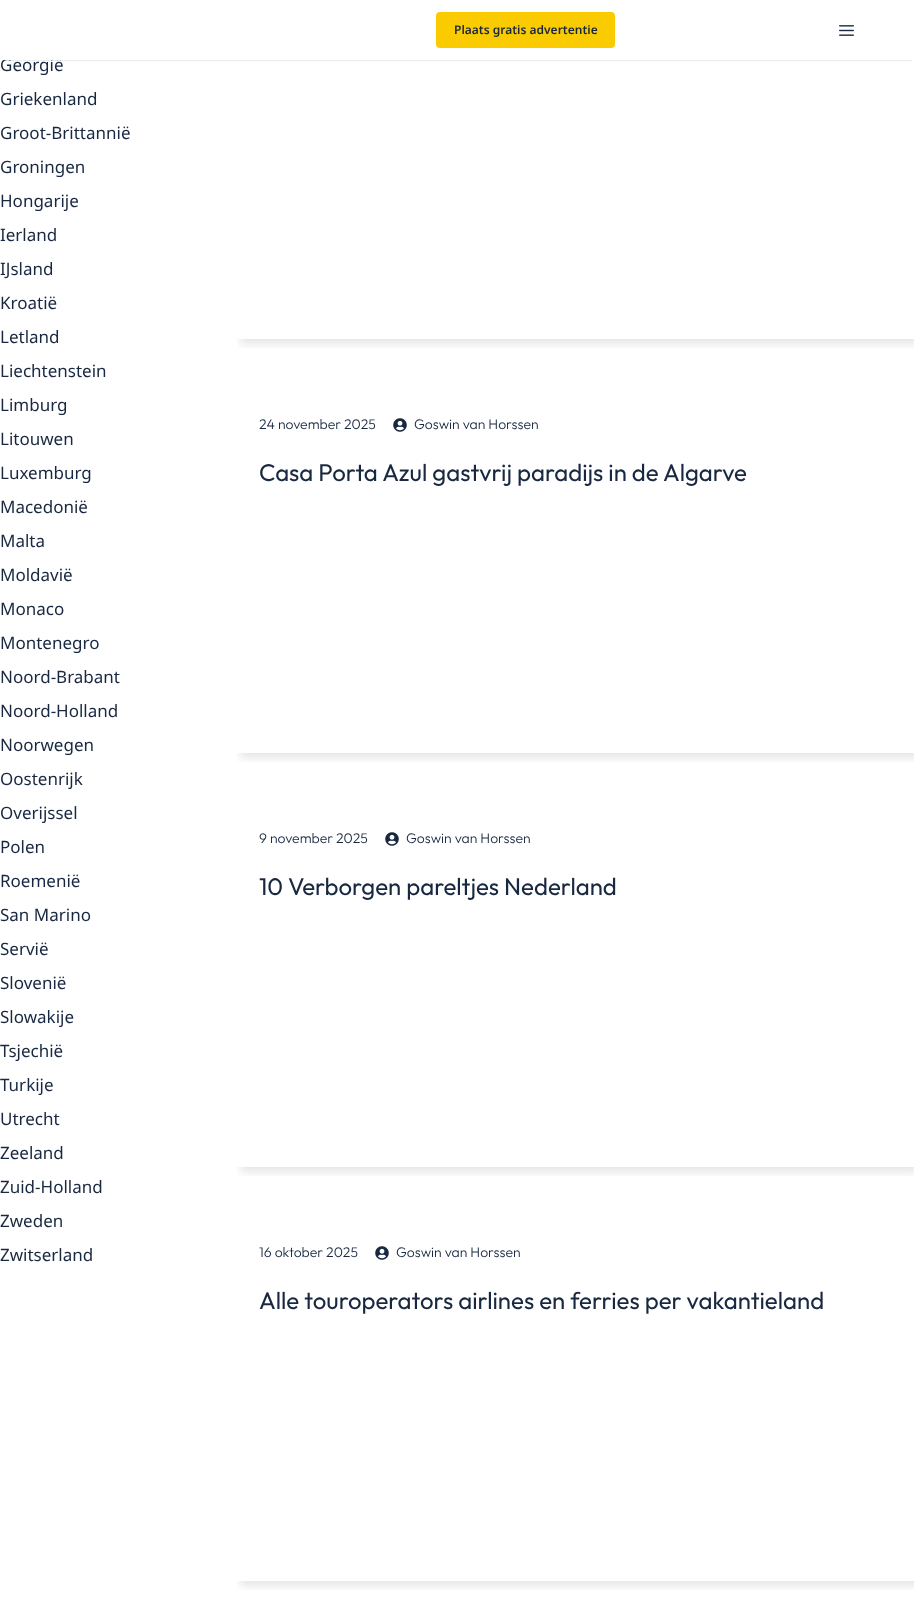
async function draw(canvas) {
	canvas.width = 914;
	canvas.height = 1604;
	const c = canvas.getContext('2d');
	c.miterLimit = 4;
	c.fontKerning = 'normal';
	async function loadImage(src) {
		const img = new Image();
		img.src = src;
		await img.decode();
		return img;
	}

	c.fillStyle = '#fff';
	c.fillRect(0, 0, 914, 1604);
	c.fillStyle = '#00000033';
	c.filter = 'blur(1px)';
	c.beginPath();
	c.rect(2, 4, 910, 56);
	c.fill();
	c.filter = 'none';
	c.font = '17px Noto Sans';
	c.fillStyle = '#192841';
	c.fillText('Georgië', 0, 71);
	c.save();
	c.beginPath();
	c.rect(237, 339, 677, 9);
	c.clip();
	c.fillStyle = '#0000001a';
	c.filter = 'blur(5px)';
	c.beginPath();
	c.rect(240, -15, 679, 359);
	c.fill();
	c.filter = 'none';
	c.restore();
	c.fillStyle = '#fff';
	c.fillRect(0, 0, 914, 60);
	c.fillStyle = '#facc00';
	c.beginPath();
	c.roundRect(436, 12, 179, 36, 4);
	c.fill();
	c.font = '600 12px Noto Sans';
	c.fillStyle = '#192841';
	c.fillText('Plaats gratis advertentie', 454, 34);
	c.drawImage(await loadImage('img1.png'), 839, 25, 15, 11);
	c.font = '17px Noto Sans';
	for (const [text, x, y] of [
		['Griekenland', 0, 105],
		['Groot-Brittannië', 0, 139],
		['Groningen', 0, 173],
		['Hongarije', 0, 207],
		['Ierland', 0, 241],
		['IJsland', 0, 275],
		['Kroatië', 0, 309],
		['Letland', 0, 343],
		['Liechtenstein', 0, 377],
		['Limburg', 0, 411],
		['Litouwen', 0, 445],
		['Luxemburg', 0, 479],
		['Macedonië', 0, 513],
		['Malta', 0, 547],
		['Moldavië', 0, 581],
		['Monaco', 0, 615],
		['Montenegro', 0, 649],
		['Noord-Brabant', 0, 683],
		['Noord-Holland', 0, 717],
		['Noorwegen', 0, 751],
		['Oostenrijk', 0, 785],
		['Overijssel', 0, 819],
		['Polen', 0, 853],
		['Roemenië', 0, 887],
		['San Marino', 0, 921],
		['Servië', 0, 955],
		['Slovenië', 0, 989],
		['Slowakije', 0, 1023],
		['Tsjechië', 0, 1057],
		['Turkije', 0, 1091],
		['Utrecht', 0, 1125],
		['Zeeland', 0, 1159],
		['Zuid-Holland', 0, 1193],
		['Zweden', 0, 1227],
		['Zwitserland', 0, 1261],
	]) {
		c.fillText(text, x, y);
	}
	c.save();
	c.beginPath();
	c.rect(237, 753, 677, 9);
	c.clip();
	c.fillStyle = '#0000001a';
	c.filter = 'blur(5px)';
	c.beginPath();
	c.rect(240, 368, 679, 390);
	c.fill();
	c.filter = 'none';
	c.restore();
	c.font = '300 14px Outfit';
	c.fillText('24 november 2025', 259, 429);
	c.drawImage(await loadImage('img2.png'), 393, 418, 14, 14);
	c.fillText('Goswin van Horssen', 414, 429);
	c.font = '24px Outfit';
	c.fillText('Casa Porta Azul gastvrij paradijs in de Algarve', 259, 481);
	c.save();
	c.beginPath();
	c.rect(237, 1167, 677, 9);
	c.clip();
	c.fillStyle = '#0000001a';
	c.filter = 'blur(5px)';
	c.beginPath();
	c.rect(240, 782, 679, 390);
	c.fill();
	c.filter = 'none';
	c.restore();
	c.font = '300 14px Outfit';
	c.fillText('9 november 2025', 259, 843);
	c.drawImage(await loadImage('img2.png'), 385, 832, 14, 14);
	c.fillText('Goswin van Horssen', 406, 843);
	c.font = '24px Outfit';
	c.fillText('10 Verborgen pareltjes Nederland', 259, 895);
	c.save();
	c.beginPath();
	c.rect(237, 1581, 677, 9);
	c.clip();
	c.fillStyle = '#0000001a';
	c.filter = 'blur(5px)';
	c.beginPath();
	c.rect(240, 1196, 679, 390);
	c.fill();
	c.filter = 'none';
	c.restore();
	c.font = '300 14px Outfit';
	c.fillText('16 oktober 2025', 259, 1257);
	c.drawImage(await loadImage('img2.png'), 375, 1246, 14, 14);
	c.fillText('Goswin van Horssen', 396, 1257);
	c.font = '24px Outfit';
	c.fillText('Alle touroperators airlines en ferries per vakantieland', 259, 1309);
}

draw(document.querySelector('canvas'));
